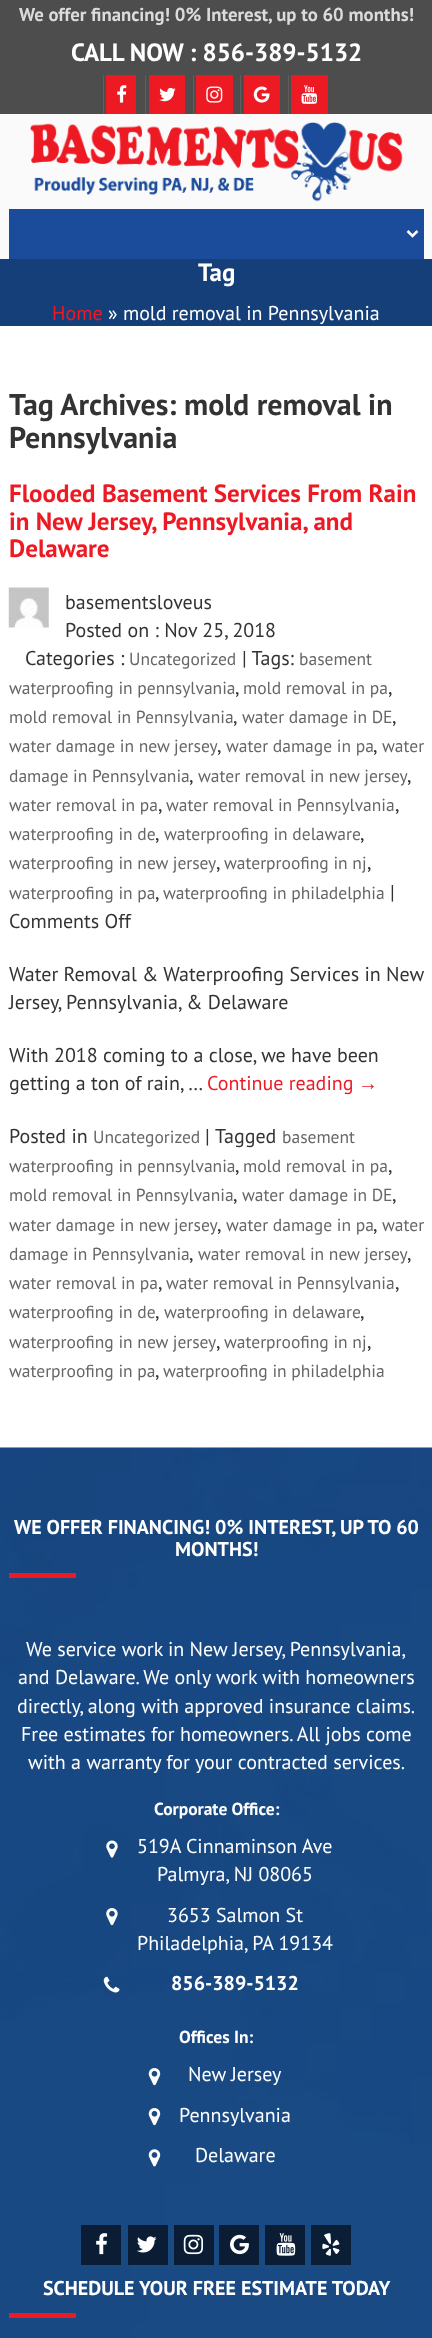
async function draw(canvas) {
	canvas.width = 432;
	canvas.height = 2338;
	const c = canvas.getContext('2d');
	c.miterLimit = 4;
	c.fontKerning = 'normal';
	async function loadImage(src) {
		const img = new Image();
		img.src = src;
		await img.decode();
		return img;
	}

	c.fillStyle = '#fff';
	c.fillRect(0, 0, 432, 2338);
	c.fillStyle = '#4d4d4d';
	c.fillRect(0, 0, 432, 114);
	c.font = 'bold 18.75px PT Sans';
	c.fillStyle = '#dbdbdb';
	c.fillText('We offer financing! 0% Interest, up to 60 months!', 19, 21);
	c.font = 'bold 25px PT Sans';
	c.fillStyle = '#fff';
	c.fillText('CALL NOW : 856-389-5132', 71, 61);
	c.fillStyle = '#5f5f5f';
	c.fillRect(103, 75, 1, 39);
	c.fillStyle = '#ed1a24';
	c.fillRect(106, 75, 30, 39);
	c.drawImage(await loadImage('img1.png'), 117, 85, 10, 18);
	c.fillStyle = '#5f5f5f';
	c.fillRect(145, 75, 1, 39);
	c.fillStyle = '#ed1a24';
	c.fillRect(149, 75, 36, 39);
	c.drawImage(await loadImage('img2.png'), 159, 87, 17, 15);
	c.fillStyle = '#5f5f5f';
	c.fillRect(193, 75, 1, 39);
	c.fillStyle = '#ed1a24';
	c.fillRect(196, 75, 37, 39);
	c.drawImage(await loadImage('img3.png'), 206, 86, 17, 17);
	c.fillStyle = '#5f5f5f';
	c.fillRect(240, 75, 1, 39);
	c.fillStyle = '#ed1a24';
	c.fillRect(244, 75, 36, 39);
	c.drawImage(await loadImage('img4.png'), 253, 86, 17, 17);
	c.fillStyle = '#5f5f5f';
	c.fillRect(288, 75, 1, 39);
	c.fillStyle = '#ed1a24';
	c.fillRect(291, 75, 37, 39);
	c.drawImage(await loadImage('img5.png'), 301, 85, 17, 19);
	c.fillStyle = '#fafafa';
	c.fillRect(0, 114, 432, 145);
	c.drawImage(await loadImage('img6.png'), 30, 122, 373, 80);
	c.fillStyle = '#1a4c9b';
	c.fillRect(9, 209, 415, 50);
	c.beginPath();
	c.moveTo(407.5, 231);
	c.lineTo(412.5, 236);
	c.lineTo(417.5, 231);
	c.strokeStyle = '#fff';
	c.lineWidth = 2.5;
	c.stroke();
	c.fillStyle = '#153f78';
	c.fillRect(0, 259, 432, 67);
	c.fillStyle = '#fff';
	c.fillText('Tag', 198, 281);
	c.font = '20px PT Sans';
	c.fillStyle = '#ed1a24';
	c.fillText('Home', 52, 320);
	c.fillStyle = '#fff';
	c.fillText('» mold removal in Pennsylvania', 108, 320);
	c.font = 'bold 30px PT Sans';
	c.fillStyle = '#333';
	c.fillText('Tag Archives: mold removal in', 9, 415);
	c.fillText('Pennsylvania', 9, 448);
	c.font = 'bold 25px PT Sans';
	c.fillStyle = '#ed1a24';
	for (const [text, x, y] of [
		['Flooded Basement Services From Rain', 9, 502],
		['in New Jersey, Pennsylvania, and', 9, 530],
		['Delaware', 9, 557],
	]) {
		c.fillText(text, x, y);
	}
	c.drawImage(await loadImage('img7.png'), 8, 587, 41, 41);
	c.font = '20px PT Sans';
	c.fillStyle = '#333';
	for (const [text, x, y] of [
		['basementsloveus', 65, 609],
		['Posted on : Nov 25, 2018', 65, 637],
		['Categories :', 25, 665],
	]) {
		c.fillText(text, x, y);
	}
	c.font = '17.5px PT Sans';
	c.fillStyle = '#666';
	c.fillText('Uncategorized', 129, 665);
	c.font = '20px PT Sans';
	c.fillStyle = '#333';
	c.fillText('| Tags:', 242, 665);
	c.font = '17.5px PT Sans';
	c.fillStyle = '#666';
	c.fillText('basement', 299, 665);
	c.fillText('waterproofing in pennsylvania', 9, 694);
	c.font = '20px PT Sans';
	c.fillStyle = '#333';
	c.fillText(',', 235, 694);
	c.font = '17.5px PT Sans';
	c.fillStyle = '#666';
	c.fillText('mold removal in pa', 243, 694);
	c.font = '20px PT Sans';
	c.fillStyle = '#333';
	c.fillText(',', 388, 694);
	c.font = '17.5px PT Sans';
	c.fillStyle = '#666';
	c.fillText('mold removal in Pennsylvania', 9, 723);
	c.font = '20px PT Sans';
	c.fillStyle = '#333';
	c.fillText(',', 233, 723);
	c.font = '17.5px PT Sans';
	c.fillStyle = '#666';
	c.fillText('water damage in DE', 242, 723);
	c.font = '20px PT Sans';
	c.fillStyle = '#333';
	c.fillText(',', 392, 723);
	c.font = '17.5px PT Sans';
	c.fillStyle = '#666';
	c.fillText('water damage in new jersey', 9, 752);
	c.font = '20px PT Sans';
	c.fillStyle = '#333';
	c.fillText(',', 217, 752);
	c.font = '17.5px PT Sans';
	c.fillStyle = '#666';
	c.fillText('water damage in pa', 226, 752);
	c.font = '20px PT Sans';
	c.fillStyle = '#333';
	c.fillText(',', 373, 752);
	c.font = '17.5px PT Sans';
	c.fillStyle = '#666';
	c.fillText('water', 382, 752);
	c.fillText('damage in Pennsylvania', 9, 782);
	c.font = '20px PT Sans';
	c.fillStyle = '#333';
	c.fillText(',', 189, 782);
	c.font = '17.5px PT Sans';
	c.fillStyle = '#666';
	c.fillText('water removal in new jersey', 198, 782);
	c.font = '20px PT Sans';
	c.fillStyle = '#333';
	c.fillText(',', 407, 782);
	c.font = '17.5px PT Sans';
	c.fillStyle = '#666';
	c.fillText('water removal in pa', 9, 811);
	c.font = '20px PT Sans';
	c.fillStyle = '#333';
	c.fillText(',', 158, 811);
	c.font = '17.5px PT Sans';
	c.fillStyle = '#666';
	c.fillText('water removal in Pennsylvania', 166, 811);
	c.font = '20px PT Sans';
	c.fillStyle = '#333';
	c.fillText(',', 395, 811);
	c.font = '17.5px PT Sans';
	c.fillStyle = '#666';
	c.fillText('waterproofing in de', 9, 840);
	c.font = '20px PT Sans';
	c.fillStyle = '#333';
	c.fillText(',', 155, 840);
	c.font = '17.5px PT Sans';
	c.fillStyle = '#666';
	c.fillText('waterproofing in delaware', 164, 840);
	c.font = '20px PT Sans';
	c.fillStyle = '#333';
	c.fillText(',', 360, 840);
	c.font = '17.5px PT Sans';
	c.fillStyle = '#666';
	c.fillText('waterproofing in new jersey', 9, 869);
	c.font = '20px PT Sans';
	c.fillStyle = '#333';
	c.fillText(',', 216, 869);
	c.font = '17.5px PT Sans';
	c.fillStyle = '#666';
	c.fillText('waterproofing in nj', 224, 869);
	c.font = '20px PT Sans';
	c.fillStyle = '#333';
	c.fillText(',', 367, 869);
	c.font = '17.5px PT Sans';
	c.fillStyle = '#666';
	c.fillText('waterproofing in pa', 9, 899);
	c.font = '20px PT Sans';
	c.fillStyle = '#333';
	c.fillText(',', 155, 899);
	c.font = '17.5px PT Sans';
	c.fillStyle = '#666';
	c.fillText('waterproofing in philadelphia', 163, 899);
	c.font = '20px PT Sans';
	c.fillStyle = '#333';
	for (const [text, x, y] of [
		['|', 390, 899],
		['Comments Off', 9, 928],
		['Water Removal & Waterproofing Services in New', 9, 981],
		['Jersey, Pennsylvania, & Delaware', 9, 1009],
		['With 2018 coming to a close, we have been', 9, 1062],
		['getting a ton of rain, …', 9, 1090],
	]) {
		c.fillText(text, x, y);
	}
	c.fillStyle = '#ed1a24';
	c.fillText('Continue reading', 207, 1090);
	c.font = '20px Liberation Sans';
	c.fillText('→', 358, 1090);
	c.font = '20px PT Sans';
	c.fillStyle = '#333';
	c.fillText('Posted in', 9, 1143);
	c.font = '17.5px PT Sans';
	c.fillStyle = '#666';
	c.fillText('Uncategorized', 93, 1143);
	c.font = '20px PT Sans';
	c.fillStyle = '#333';
	c.fillText('|', 205, 1143);
	c.fillText('Tagged', 215, 1143);
	c.font = '17.5px PT Sans';
	c.fillStyle = '#666';
	c.fillText('basement', 282, 1143);
	c.fillText('waterproofing in pennsylvania', 9, 1172);
	c.font = '20px PT Sans';
	c.fillStyle = '#333';
	c.fillText(',', 235, 1172);
	c.font = '17.5px PT Sans';
	c.fillStyle = '#666';
	c.fillText('mold removal in pa', 243, 1172);
	c.font = '20px PT Sans';
	c.fillStyle = '#333';
	c.fillText(',', 388, 1172);
	c.font = '17.5px PT Sans';
	c.fillStyle = '#666';
	c.fillText('mold removal in Pennsylvania', 9, 1201);
	c.font = '20px PT Sans';
	c.fillStyle = '#333';
	c.fillText(',', 233, 1201);
	c.font = '17.5px PT Sans';
	c.fillStyle = '#666';
	c.fillText('water damage in DE', 242, 1201);
	c.font = '20px PT Sans';
	c.fillStyle = '#333';
	c.fillText(',', 392, 1201);
	c.font = '17.5px PT Sans';
	c.fillStyle = '#666';
	c.fillText('water damage in new jersey', 9, 1231);
	c.font = '20px PT Sans';
	c.fillStyle = '#333';
	c.fillText(',', 217, 1231);
	c.font = '17.5px PT Sans';
	c.fillStyle = '#666';
	c.fillText('water damage in pa', 226, 1231);
	c.font = '20px PT Sans';
	c.fillStyle = '#333';
	c.fillText(',', 373, 1231);
	c.font = '17.5px PT Sans';
	c.fillStyle = '#666';
	c.fillText('water', 382, 1231);
	c.fillText('damage in Pennsylvania', 9, 1260);
	c.font = '20px PT Sans';
	c.fillStyle = '#333';
	c.fillText(',', 189, 1260);
	c.font = '17.5px PT Sans';
	c.fillStyle = '#666';
	c.fillText('water removal in new jersey', 198, 1260);
	c.font = '20px PT Sans';
	c.fillStyle = '#333';
	c.fillText(',', 407, 1260);
	c.font = '17.5px PT Sans';
	c.fillStyle = '#666';
	c.fillText('water removal in pa', 9, 1289);
	c.font = '20px PT Sans';
	c.fillStyle = '#333';
	c.fillText(',', 158, 1289);
	c.font = '17.5px PT Sans';
	c.fillStyle = '#666';
	c.fillText('water removal in Pennsylvania', 166, 1289);
	c.font = '20px PT Sans';
	c.fillStyle = '#333';
	c.fillText(',', 395, 1289);
	c.font = '17.5px PT Sans';
	c.fillStyle = '#666';
	c.fillText('waterproofing in de', 9, 1318);
	c.font = '20px PT Sans';
	c.fillStyle = '#333';
	c.fillText(',', 155, 1318);
	c.font = '17.5px PT Sans';
	c.fillStyle = '#666';
	c.fillText('waterproofing in delaware', 164, 1318);
	c.font = '20px PT Sans';
	c.fillStyle = '#333';
	c.fillText(',', 360, 1318);
	c.font = '17.5px PT Sans';
	c.fillStyle = '#666';
	c.fillText('waterproofing in new jersey', 9, 1348);
	c.font = '20px PT Sans';
	c.fillStyle = '#333';
	c.fillText(',', 216, 1348);
	c.font = '17.5px PT Sans';
	c.fillStyle = '#666';
	c.fillText('waterproofing in nj', 224, 1348);
	c.font = '20px PT Sans';
	c.fillStyle = '#333';
	c.fillText(',', 367, 1348);
	c.font = '17.5px PT Sans';
	c.fillStyle = '#666';
	c.fillText('waterproofing in pa', 9, 1377);
	c.font = '20px PT Sans';
	c.fillStyle = '#333';
	c.fillText(',', 155, 1377);
	c.font = '17.5px PT Sans';
	c.fillStyle = '#666';
	c.fillText('waterproofing in philadelphia', 163, 1377);
	c.drawImage(await loadImage('img8.png'), 0, 1447, 432, 891);
	c.font = 'bold 20px PT Sans';
	c.fillStyle = '#fff';
	c.fillText('WE OFFER FINANCING! 0% INTEREST, UP TO 60', 14, 1534);
	c.fillText('MONTHS!', 175, 1556);
	c.fillStyle = '#ed1a25';
	c.fillRect(9, 1573, 67, 5);
	c.font = '20px PT Sans';
	c.fillStyle = '#fff';
	for (const [text, x, y] of [
		['We service work in New Jersey, Pennsylvania,', 26, 1656],
		['and Delaware. We only work with homeowners', 18, 1684],
		['directly, along with approved insurance claims.', 17, 1713],
		['Free estimates for homeowners. All jobs come', 21, 1741],
		['with a warranty for your contracted services.', 28, 1769],
	]) {
		c.fillText(text, x, y);
	}
	c.font = 'bold 17.5px PT Sans';
	c.fillText('Corporate Office:', 154, 1815);
	c.drawImage(await loadImage('img9.png'), 106, 1840, 12, 18);
	c.font = '20px PT Sans';
	c.fillText('519A Cinnaminson Ave', 137, 1853);
	c.fillText('Palmyra, NJ 08065', 157, 1881);
	c.drawImage(await loadImage('img10.png'), 106, 1908, 12, 18);
	c.fillText('3653 Salmon St', 167, 1922);
	c.fillText('Philadelphia, PA 19134', 137, 1950);
	c.drawImage(await loadImage('img11.png'), 103, 1976, 17, 17);
	c.font = 'bold 20px PT Sans';
	c.fillText('856-389-5132', 171, 1990);
	c.font = 'bold 17.5px PT Sans';
	c.fillText('Offices In:', 179, 2043);
	c.drawImage(await loadImage('img12.png'), 148, 2068, 13, 18);
	c.font = '20px PT Sans';
	c.fillText('New Jersey', 188, 2081);
	c.drawImage(await loadImage('img12.png'), 148, 2108, 13, 18);
	c.fillText('Pennsylvania', 179, 2122);
	c.drawImage(await loadImage('img13.png'), 148, 2149, 13, 18);
	c.fillText('Delaware', 195, 2162);
	c.fillStyle = '#0a1d35';
	c.fillRect(81, 2225, 40, 40);
	c.drawImage(await loadImage('img14.png'), 96, 2233, 12, 22);
	c.fillRect(128, 2225, 40, 40);
	c.drawImage(await loadImage('img15.png'), 137, 2236, 20, 17);
	c.fillRect(174, 2225, 40, 40);
	c.drawImage(await loadImage('img16.png'), 183, 2234, 21, 21);
	c.fillRect(219, 2225, 40, 40);
	c.drawImage(await loadImage('img17.png'), 230, 2234, 19, 21);
	c.fillRect(265, 2225, 40, 40);
	c.drawImage(await loadImage('img18.png'), 276, 2233, 20, 23);
	c.fillStyle = '#0a1e35';
	c.fillRect(311, 2225, 40, 40);
	c.drawImage(await loadImage('img19.png'), 322, 2233, 18, 23);
	c.font = 'bold 20px PT Sans';
	c.fillStyle = '#fff';
	c.fillText('SCHEDULE YOUR FREE ESTIMATE TODAY', 43, 2295);
	c.fillStyle = '#ed1a25';
	c.fillRect(9, 2313, 67, 5);
}

draw(document.querySelector('canvas'));
